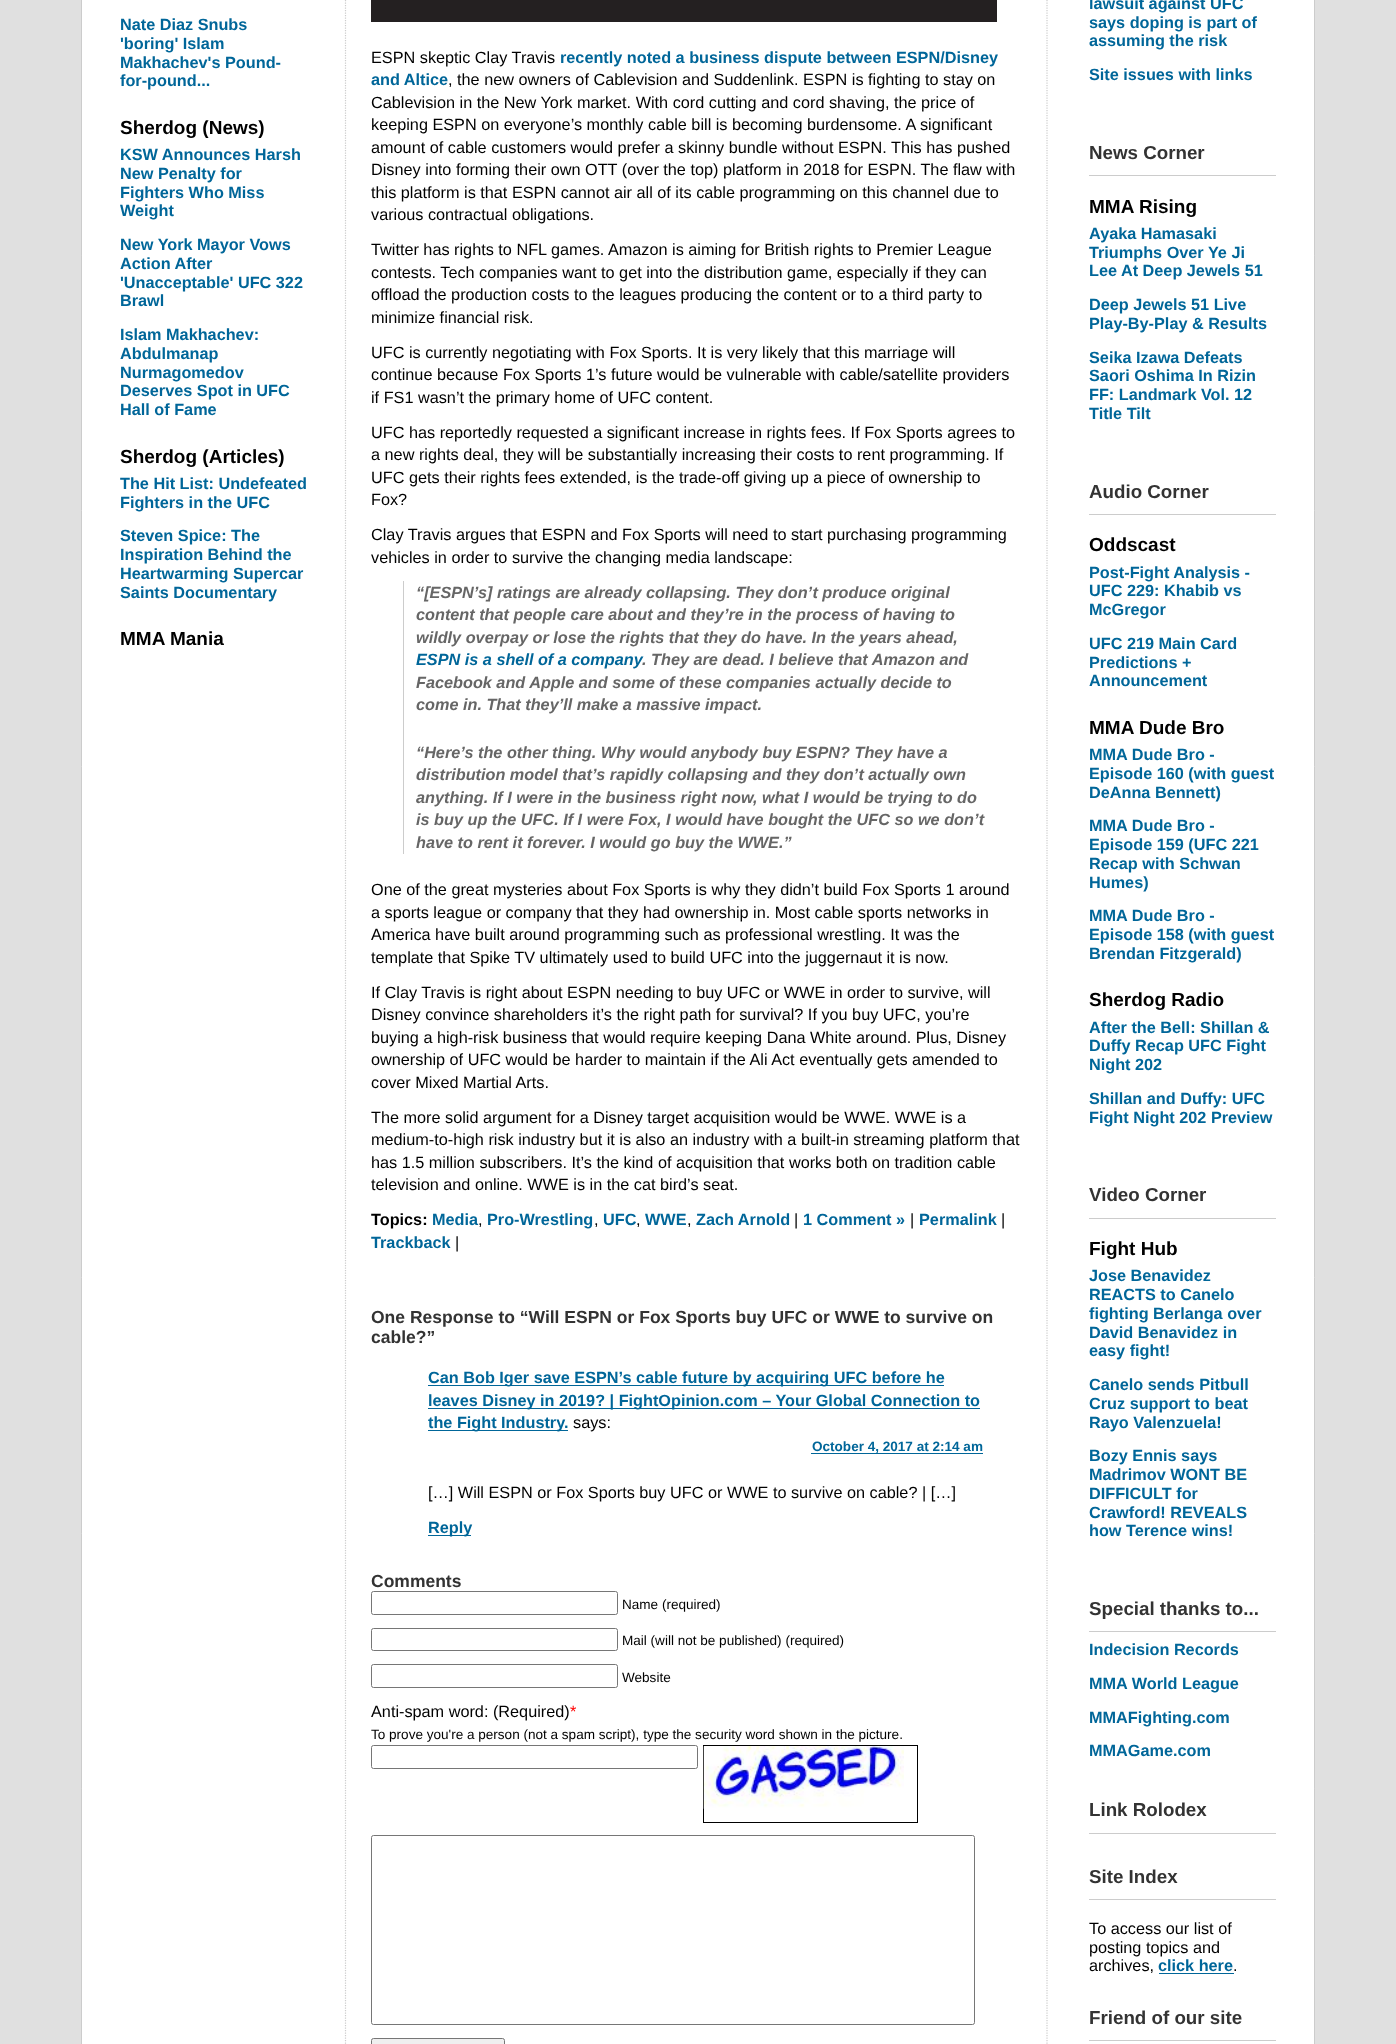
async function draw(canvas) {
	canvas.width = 1396;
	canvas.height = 2044;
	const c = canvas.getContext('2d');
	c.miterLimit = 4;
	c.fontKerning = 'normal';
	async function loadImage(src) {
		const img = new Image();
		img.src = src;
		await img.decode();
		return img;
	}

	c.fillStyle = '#e0e0e0';
	c.fillRect(0, 0, 1396, 2044);
	c.fillStyle = '#fff';
	c.beginPath();
	c.rect(81.5, -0.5, 1233, 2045);
	c.fill();
	c.strokeStyle = '#ccc';
	c.stroke();
	c.font = 'bold 16.25px Liberation Sans';
	c.fillStyle = '#069';
	for (const [text, x, y] of [
		['Nate Diaz Snubs', 120, 30],
		['\'boring\' Islam', 120, 49],
		['Makhachev\'s Pound-', 120, 68],
		['for-pound...', 120, 86],
	]) {
		c.fillText(text, x, y);
	}
	c.font = 'bold 19px Liberation Sans';
	c.fillStyle = '#000';
	c.fillText('Sherdog (News)', 120, 134);
	c.font = 'bold 16.25px Liberation Sans';
	c.fillStyle = '#069';
	for (const [text, x, y] of [
		['KSW Announces Harsh', 120, 160],
		['New Penalty for', 120, 179],
		['Fighters Who Miss', 120, 198],
		['Weight', 120, 216],
		['New York Mayor Vows', 120, 250],
		['Action After', 120, 269],
		['\'Unacceptable\' UFC 322', 120, 288],
		['Brawl', 120, 306],
		['Islam Makhachev:', 120, 340],
		['Abdulmanap', 120, 359],
		['Nurmagomedov', 120, 378],
		['Deserves Spot in UFC', 120, 396],
		['Hall of Fame', 120, 415],
	]) {
		c.fillText(text, x, y);
	}
	c.font = 'bold 19px Liberation Sans';
	c.fillStyle = '#000';
	c.fillText('Sherdog (Articles)', 120, 463);
	c.font = 'bold 16.25px Liberation Sans';
	c.fillStyle = '#069';
	for (const [text, x, y] of [
		['The Hit List: Undefeated', 120, 489],
		['Fighters in the UFC', 120, 508],
		['Steven Spice: The', 120, 541],
		['Inspiration Behind the', 120, 560],
		['Heartwarming Supercar', 120, 579],
		['Saints Documentary', 120, 598],
	]) {
		c.fillText(text, x, y);
	}
	c.font = 'bold 19px Liberation Sans';
	c.fillStyle = '#000';
	c.fillText('MMA Mania', 120, 645);
	c.beginPath();
	c.moveTo(1047, -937.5);
	c.lineTo(1047, 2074);
	c.lineWidth = 1.2;
	c.setLineDash([1.25, 1.25]);
	c.stroke();
	c.beginPath();
	c.moveTo(345.5, -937.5);
	c.lineTo(345.5, 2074);
	c.stroke();
	c.fillStyle = '#242021';
	c.fillRect(371, 0, 626, 22);
	c.font = '16.25px Liberation Sans';
	c.fillStyle = '#000';
	c.fillText('ESPN skeptic Clay Travis', 371, 63);
	c.font = 'bold 16.25px Liberation Sans';
	c.fillStyle = '#069';
	c.fillText('recently noted a business dispute between ESPN/Disney', 560, 63);
	c.fillText('and Altice', 371, 85);
	c.font = '16.25px Liberation Sans';
	c.fillStyle = '#000';
	for (const [text, x, y] of [
		[', the new owners of Cablevision and Suddenlink. ESPN is fighting to stay on', 448, 85],
		['Cablevision in the New York market. With cord cutting and cord shaving, the price of', 371, 108],
		['keeping ESPN on everyone’s monthly cable bill is becoming burdensome. A significant', 371, 130],
		['amount of cable customers would prefer a skinny bundle without ESPN. This has pushed', 371, 153],
		['Disney into forming their own OTT (over the top) platform in 2018 for ESPN. The flaw with', 371, 175],
		['this platform is that ESPN cannot air all of its cable programming on this channel due to', 371, 198],
		['various contractual obligations.', 371, 220],
		['Twitter has rights to NFL games. Amazon is aiming for British rights to Premier League', 371, 255],
		['contests. Tech companies want to get into the distribution game, especially if they can', 371, 278],
		['offload the production costs to the leagues producing the content or to a third party to', 371, 300],
		['minimize financial risk.', 371, 323],
		['UFC is currently negotiating with Fox Sports. It is very likely that this marriage will', 371, 358],
		['continue because Fox Sports 1’s future would be vulnerable with cable/satellite providers', 371, 380],
		['if FS1 wasn’t the primary home of UFC content.', 371, 403],
		['UFC has reportedly requested a significant increase in rights fees. If Fox Sports agrees to', 371, 438],
		['a new rights deal, they will be substantially increasing their costs to rent programming. If', 371, 460],
		['UFC gets their rights fees extended, is the trade-off giving up a piece of ownership to', 371, 483],
		['Fox?', 371, 505],
		['Clay Travis argues that ESPN and Fox Sports will need to start purchasing programming', 371, 540],
		['vehicles in order to survive the changing media landscape:', 371, 563],
	]) {
		c.fillText(text, x, y);
	}
	c.fillStyle = '#ccc';
	c.fillRect(403, 581, 1, 273);
	c.font = 'italic bold 16.25px Liberation Sans';
	c.fillStyle = '#666';
	for (const [text, x, y] of [
		['“[ESPN’s] ratings are already collapsing. They don’t produce original', 416, 598],
		['content that people care about and they’re in the process of having to', 416, 620],
		['wildly overpay or lose the rights that they do have. In the years ahead,', 416, 643],
	]) {
		c.fillText(text, x, y);
	}
	c.fillStyle = '#069';
	c.fillText('ESPN is a shell of a company', 416, 665);
	c.fillStyle = '#666';
	for (const [text, x, y] of [
		['. They are dead. I believe that Amazon and', 642, 665],
		['Facebook and Apple and some of these companies actually decide to', 416, 688],
		['come in. That they’ll make a massive impact.', 416, 710],
		['“Here’s the other thing. Why would anybody buy ESPN? They have a', 416, 758],
		['distribution model that’s rapidly collapsing and they don’t actually own', 416, 780],
		['anything. If I were in the business right now, what I would be trying to do', 416, 803],
		['is buy up the UFC. If I were Fox, I would have bought the UFC so we don’t', 416, 825],
		['have to rent it forever. I would go buy the WWE.”', 416, 848],
	]) {
		c.fillText(text, x, y);
	}
	c.font = '16.25px Liberation Sans';
	c.fillStyle = '#000';
	for (const [text, x, y] of [
		['One of the great mysteries about Fox Sports is why they didn’t build Fox Sports 1 around', 371, 895],
		['a sports league or company that they had ownership in. Most cable sports networks in', 371, 918],
		['America have built around programming such as professional wrestling. It was the', 371, 940],
		['template that Spike TV ultimately used to build UFC into the juggernaut it is now.', 371, 963],
		['If Clay Travis is right about ESPN needing to buy UFC or WWE in order to survive, will', 371, 998],
		['Disney convince shareholders it’s the right path for survival? If you buy UFC, you’re', 371, 1020],
		['buying a high-risk business that would require keeping Dana White around. Plus, Disney', 371, 1043],
		['ownership of UFC would be harder to maintain if the Ali Act eventually gets amended to', 371, 1065],
		['cover Mixed Martial Arts.', 371, 1088],
		['The more solid argument for a Disney target acquisition would be WWE. WWE is a', 371, 1123],
		['medium-to-high risk industry but it is also an industry with a built-in streaming platform that', 371, 1145],
		['has 1.5 million subscribers. It’s the kind of acquisition that works both on tradition cable', 371, 1168],
		['television and online. WWE is in the cat bird’s seat.', 371, 1190],
	]) {
		c.fillText(text, x, y);
	}
	c.font = 'bold 16.25px Liberation Sans';
	c.fillText('Topics:', 371, 1225);
	c.fillStyle = '#069';
	c.fillText('Media', 432, 1225);
	c.font = '16.25px Liberation Sans';
	c.fillStyle = '#000';
	c.fillText(',', 478, 1225);
	c.font = 'bold 16.25px Liberation Sans';
	c.fillStyle = '#069';
	c.fillText('Pro-Wrestling', 487, 1225);
	c.font = '16.25px Liberation Sans';
	c.fillStyle = '#000';
	c.fillText(',', 594, 1225);
	c.font = 'bold 16.25px Liberation Sans';
	c.fillStyle = '#069';
	c.fillText('UFC', 603, 1225);
	c.font = '16.25px Liberation Sans';
	c.fillStyle = '#000';
	c.fillText(',', 636, 1225);
	c.font = 'bold 16.25px Liberation Sans';
	c.fillStyle = '#069';
	c.fillText('WWE', 645, 1225);
	c.font = '16.25px Liberation Sans';
	c.fillStyle = '#000';
	c.fillText(',', 687, 1225);
	c.font = 'bold 16.25px Liberation Sans';
	c.fillStyle = '#069';
	c.fillText('Zach Arnold', 696, 1225);
	c.font = '16.25px Liberation Sans';
	c.fillStyle = '#000';
	c.fillText('|', 794, 1225);
	c.font = 'bold 16.25px Liberation Sans';
	c.fillStyle = '#069';
	c.fillText('1 Comment »', 803, 1225);
	c.font = '16.25px Liberation Sans';
	c.fillStyle = '#000';
	c.fillText('|', 910, 1225);
	c.font = 'bold 16.25px Liberation Sans';
	c.fillStyle = '#069';
	c.fillText('Permalink', 919, 1225);
	c.font = '16.25px Liberation Sans';
	c.fillStyle = '#000';
	c.fillText('|', 1001, 1225);
	c.font = 'bold 16.25px Liberation Sans';
	c.fillStyle = '#069';
	c.fillText('Trackback', 371, 1248);
	c.font = '16.25px Liberation Sans';
	c.fillStyle = '#000';
	c.fillText('|', 455, 1248);
	c.font = 'bold 17.5px Liberation Sans';
	c.fillStyle = '#333';
	c.fillText('One Response to “Will ESPN or Fox Sports buy UFC or WWE to survive on', 371, 1323);
	c.fillText('cable?”', 371, 1343);
	c.fillStyle = '#069';
	c.fillRect(428, 1385, 516, 1);
	c.font = 'bold 16.25px Liberation Sans';
	c.fillText('Can Bob Iger save ESPN’s cable future by acquiring UFC before he', 428, 1383);
	c.fillRect(428, 1408, 552, 1);
	c.fillText('leaves Disney in 2019? | FightOpinion.com – Your Global Connection to', 428, 1406);
	c.fillRect(428, 1430, 140, 1);
	c.fillText('the Fight Industry.', 428, 1428);
	c.font = '16.25px Liberation Sans';
	c.fillStyle = '#000';
	c.fillText('says:', 573, 1428);
	c.fillStyle = '#069';
	c.fillRect(811, 1453, 172, 1);
	c.font = 'bold 13.55px Liberation Sans';
	c.fillText('October 4, 2017 at 2:14 am', 812, 1451);
	c.font = '16.25px Liberation Sans';
	c.fillStyle = '#000';
	c.fillText('[…] Will ESPN or Fox Sports buy UFC or WWE to survive on cable? | […]', 428, 1498);
	c.fillStyle = '#069';
	c.fillRect(428, 1535, 43, 1);
	c.font = 'bold 16.25px Liberation Sans';
	c.fillText('Reply', 428, 1533);
	c.font = 'bold 17.5px Liberation Sans';
	c.fillStyle = '#333';
	c.fillText('Comments', 371, 1587);
	c.beginPath();
	c.roundRect(371.5, 1591.5, 246, 23, 2);
	c.strokeStyle = '#767676';
	c.lineWidth = 1;
	c.setLineDash([]);
	c.stroke();
	c.font = '13.55px Liberation Sans';
	c.fillStyle = '#000';
	c.fillText('Name (required)', 622, 1609);
	c.beginPath();
	c.roundRect(371.5, 1628.5, 246, 22, 2);
	c.stroke();
	c.fillText('Mail (will not be published) (required)', 622, 1645);
	c.beginPath();
	c.roundRect(371.5, 1664.5, 246, 23, 2);
	c.stroke();
	c.fillText('Website', 622, 1682);
	c.font = '16.25px Liberation Sans';
	c.fillText('Anti-spam word: (Required)', 371, 1717);
	c.fillStyle = '#f00';
	c.fillText('*', 570, 1717);
	c.font = '13.55px Liberation Sans';
	c.fillStyle = '#000';
	c.fillText('To prove you\'re a person (not a spam script), type the security word shown in the picture.', 371, 1739);
	c.beginPath();
	c.roundRect(371.5, 1745.5, 326, 23, 2);
	c.stroke();
	c.strokeStyle = '#000';
	c.strokeRect(703.5, 1745.5, 214, 77);
	c.drawImage(await loadImage('img1.png'), 703, 1746, 201, 63);
	c.beginPath();
	c.roundRect(371.5, 1835.5, 603, 189, 2);
	c.strokeStyle = '#767676';
	c.stroke();
	c.fillStyle = '#efefef';
	c.beginPath();
	c.roundRect(371.5, 2038.5, 133, 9, 2);
	c.fill();
	c.stroke();
	c.font = 'bold 16.25px Liberation Sans';
	c.fillStyle = '#069';
	for (const [text, x, y] of [
		['lawsuit against UFC', 1089, 9],
		['says doping is part of', 1089, 28],
		['assuming the risk', 1089, 46],
		['Site issues with links', 1089, 80],
	]) {
		c.fillText(text, x, y);
	}
	c.fillStyle = '#ccc';
	c.fillRect(1089, 175, 187, 1);
	c.font = 'bold 18.75px Liberation Sans';
	c.fillStyle = '#333';
	c.fillText('News Corner', 1089, 159);
	c.font = 'bold 19px Liberation Sans';
	c.fillStyle = '#000';
	c.fillText('MMA Rising', 1089, 213);
	c.font = 'bold 16.25px Liberation Sans';
	c.fillStyle = '#069';
	for (const [text, x, y] of [
		['Ayaka Hamasaki', 1089, 239],
		['Triumphs Over Ye Ji', 1089, 258],
		['Lee At Deep Jewels 51', 1089, 276],
		['Deep Jewels 51 Live', 1089, 310],
		['Play-By-Play & Results', 1089, 329],
		['Seika Izawa Defeats', 1089, 363],
		['Saori Oshima In Rizin', 1089, 381],
		['FF: Landmark Vol. 12', 1089, 400],
		['Title Tilt', 1089, 419],
	]) {
		c.fillText(text, x, y);
	}
	c.fillStyle = '#ccc';
	c.fillRect(1089, 514, 187, 1);
	c.font = 'bold 18.75px Liberation Sans';
	c.fillStyle = '#333';
	c.fillText('Audio Corner', 1089, 498);
	c.font = 'bold 19px Liberation Sans';
	c.fillStyle = '#000';
	c.fillText('Oddscast', 1089, 551);
	c.font = 'bold 16.25px Liberation Sans';
	c.fillStyle = '#069';
	for (const [text, x, y] of [
		['Post-Fight Analysis -', 1089, 578],
		['UFC 229: Khabib vs', 1089, 596],
		['McGregor', 1089, 615],
		['UFC 219 Main Card', 1089, 649],
		['Predictions +', 1089, 668],
		['Announcement', 1089, 686],
	]) {
		c.fillText(text, x, y);
	}
	c.font = 'bold 19px Liberation Sans';
	c.fillStyle = '#000';
	c.fillText('MMA Dude Bro', 1089, 734);
	c.font = 'bold 16.25px Liberation Sans';
	c.fillStyle = '#069';
	for (const [text, x, y] of [
		['MMA Dude Bro -', 1089, 760],
		['Episode 160 (with guest', 1089, 779],
		['DeAnna Bennett)', 1089, 798],
		['MMA Dude Bro -', 1089, 831],
		['Episode 159 (UFC 221', 1089, 850],
		['Recap with Schwan', 1089, 869],
		['Humes)', 1089, 888],
		['MMA Dude Bro -', 1089, 921],
		['Episode 158 (with guest', 1089, 940],
		['Brendan Fitzgerald)', 1089, 959],
	]) {
		c.fillText(text, x, y);
	}
	c.font = 'bold 19px Liberation Sans';
	c.fillStyle = '#000';
	c.fillText('Sherdog Radio', 1089, 1006);
	c.font = 'bold 16.25px Liberation Sans';
	c.fillStyle = '#069';
	for (const [text, x, y] of [
		['After the Bell: Shillan &', 1089, 1033],
		['Duffy Recap UFC Fight', 1089, 1051],
		['Night 202', 1089, 1070],
		['Shillan and Duffy: UFC', 1089, 1104],
		['Fight Night 202 Preview', 1089, 1123],
	]) {
		c.fillText(text, x, y);
	}
	c.fillStyle = '#ccc';
	c.fillRect(1089, 1218, 187, 1);
	c.font = 'bold 18.75px Liberation Sans';
	c.fillStyle = '#333';
	c.fillText('Video Corner', 1089, 1201);
	c.font = 'bold 19px Liberation Sans';
	c.fillStyle = '#000';
	c.fillText('Fight Hub', 1089, 1255);
	c.font = 'bold 16.25px Liberation Sans';
	c.fillStyle = '#069';
	for (const [text, x, y] of [
		['Jose Benavidez', 1089, 1281],
		['REACTS to Canelo', 1089, 1300],
		['fighting Berlanga over', 1089, 1319],
		['David Benavidez in', 1089, 1338],
		['easy fight!', 1089, 1356],
		['Canelo sends Pitbull', 1089, 1390],
		['Cruz support to beat', 1089, 1409],
		['Rayo Valenzuela!', 1089, 1428],
		['Bozy Ennis says', 1089, 1461],
		['Madrimov WONT BE', 1089, 1480],
		['DIFFICULT for', 1089, 1499],
		['Crawford! REVEALS', 1089, 1518],
		['how Terence wins!', 1089, 1536],
	]) {
		c.fillText(text, x, y);
	}
	c.fillStyle = '#ccc';
	c.fillRect(1089, 1631, 187, 1);
	c.font = 'bold 18.75px Liberation Sans';
	c.fillStyle = '#333';
	c.fillText('Special thanks to...', 1089, 1615);
	c.font = 'bold 16.25px Liberation Sans';
	c.fillStyle = '#069';
	for (const [text, x, y] of [
		['Indecision Records', 1089, 1655],
		['MMA World League', 1089, 1689],
		['MMAFighting.com', 1089, 1723],
		['MMAGame.com', 1089, 1756],
	]) {
		c.fillText(text, x, y);
	}
	c.fillStyle = '#ccc';
	c.fillRect(1089, 1833, 187, 1);
	c.font = 'bold 18.75px Liberation Sans';
	c.fillStyle = '#333';
	c.fillText('Link Rolodex', 1089, 1816);
	c.fillStyle = '#ccc';
	c.fillRect(1089, 1899, 187, 1);
	c.fillStyle = '#333';
	c.fillText('Site Index', 1089, 1883);
	c.font = '16.25px Liberation Sans';
	c.fillStyle = '#000';
	for (const [text, x, y] of [
		['To access our list of', 1089, 1934],
		['posting topics and', 1089, 1953],
		['archives,', 1089, 1971],
	]) {
		c.fillText(text, x, y);
	}
	c.font = 'bold 16.25px Liberation Sans';
	c.fillStyle = '#069';
	c.fillText('click here', 1158, 1971);
	c.fillRect(1159, 1973, 75, 1);
	c.font = '16.25px Liberation Sans';
	c.fillStyle = '#000';
	c.fillText('.', 1233, 1971);
	c.fillStyle = '#ccc';
	c.fillRect(1089, 2040, 187, 1);
	c.font = 'bold 18.75px Liberation Sans';
	c.fillStyle = '#333';
	c.fillText('Friend of our site', 1089, 2024);
}

draw(document.querySelector('canvas'));
